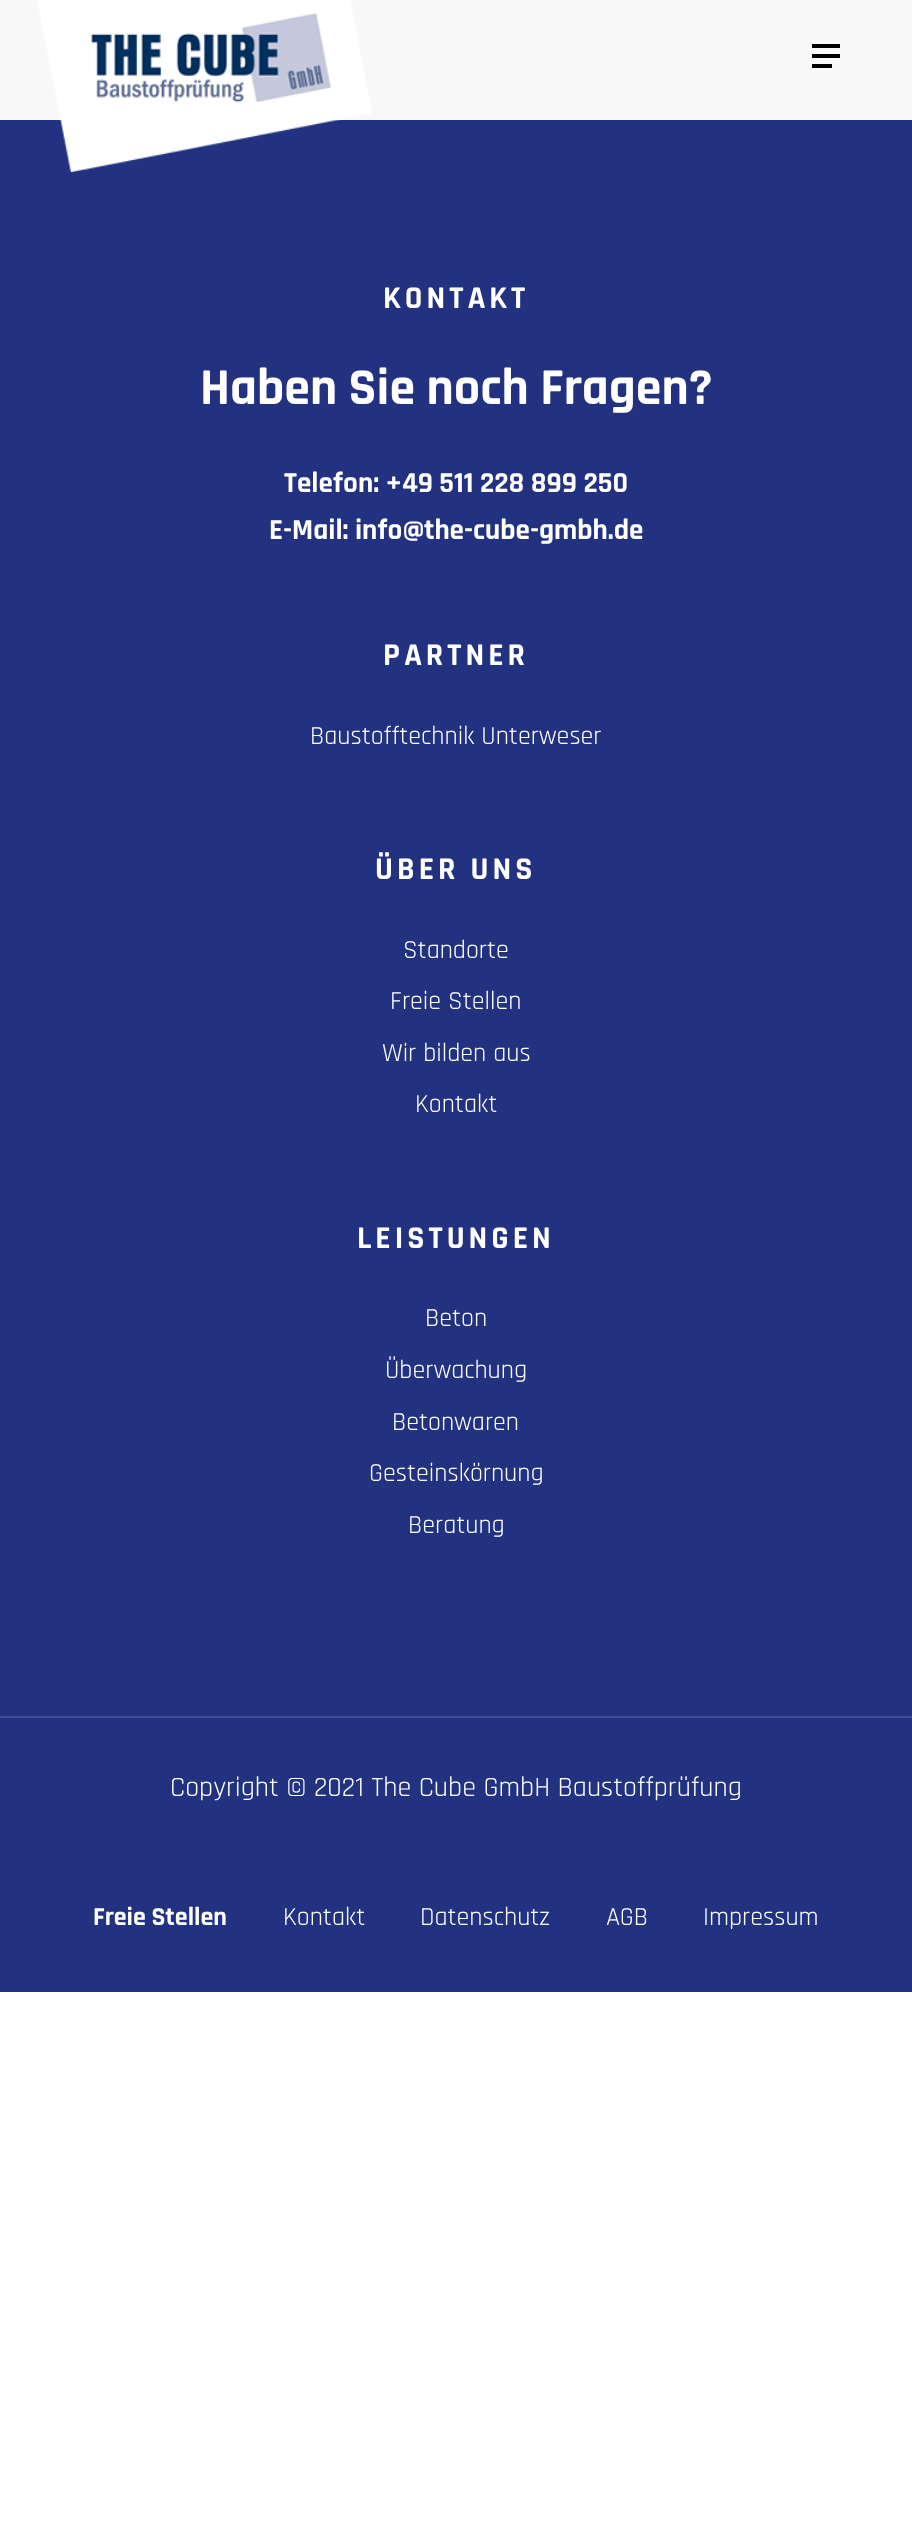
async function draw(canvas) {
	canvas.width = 912;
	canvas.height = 2541;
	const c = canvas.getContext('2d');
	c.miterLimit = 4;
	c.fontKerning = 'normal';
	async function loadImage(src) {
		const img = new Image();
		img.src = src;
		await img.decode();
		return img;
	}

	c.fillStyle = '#fff';
	c.fillRect(0, 0, 912, 2541);
	c.fillStyle = '#f8f8f8';
	c.fillRect(0, 0, 912, 120);
	c.fillStyle = '#223281';
	c.fillRect(0, 120, 912, 1872);
	c.drawImage(await loadImage('img1.png'), 37, 0, 335, 172);
	c.drawImage(await loadImage('img2.png'), 812, 44, 28, 24);
	c.letterSpacing = '4px';
	c.font = 'bold 32px Rajdhani';
	c.fillStyle = '#fff';
	c.fillText('KONTAKT', 383, 308);
	c.letterSpacing = '0px';
	c.font = 'bold 52px Rajdhani';
	c.fillText('Haben Sie noch Fragen?', 200, 404);
	c.font = 'bold 29.1px Rajdhani';
	c.fillText('Telefon: +49 511 228 899 250', 284, 492);
	c.fillText('E-Mail: info@the-cube-gmbh.de', 269, 539);
	c.letterSpacing = '4px';
	c.font = 'bold 32px Rajdhani';
	c.fillText('PARTNER', 383, 665);
	c.letterSpacing = '0px';
	c.font = '26px Rajdhani';
	c.fillText('Baustofftechnik Unterweser', 310, 744);
	c.letterSpacing = '4px';
	c.font = 'bold 32px Rajdhani';
	c.fillText('ÜBER UNS', 375, 879);
	c.letterSpacing = '0px';
	c.font = '26px Rajdhani';
	for (const [text, x, y] of [
		['Standorte', 403, 958],
		['Freie Stellen', 390, 1009],
		['Wir bilden aus', 382, 1061],
		['Kontakt', 415, 1112],
	]) {
		c.fillText(text, x, y);
	}
	c.letterSpacing = '4px';
	c.font = 'bold 32px Rajdhani';
	c.fillText('LEISTUNGEN', 357, 1248);
	c.letterSpacing = '0px';
	c.font = '26px Rajdhani';
	for (const [text, x, y] of [
		['Beton', 425, 1326],
		['Überwachung', 385, 1378],
		['Betonwaren', 392, 1430],
		['Gesteinskörnung', 369, 1481],
		['Beratung', 408, 1533],
	]) {
		c.fillText(text, x, y);
	}
	c.fillStyle = '#435194';
	c.fillRect(0, 1716, 912, 2);
	c.font = '28px Rajdhani';
	c.fillStyle = '#fff';
	c.fillText('Copyright © 2021 The Cube GmbH Baustoffprüfung', 170, 1796);
	c.font = 'bold 26px Rajdhani';
	c.fillText('Freie Stellen', 93, 1925);
	c.font = '26px Rajdhani';
	for (const [text, x, y] of [
		['Kontakt', 283, 1925],
		['Datenschutz', 420, 1925],
		['AGB', 606, 1925],
		['Impressum', 703, 1925],
	]) {
		c.fillText(text, x, y);
	}
}

draw(document.querySelector('canvas'));
